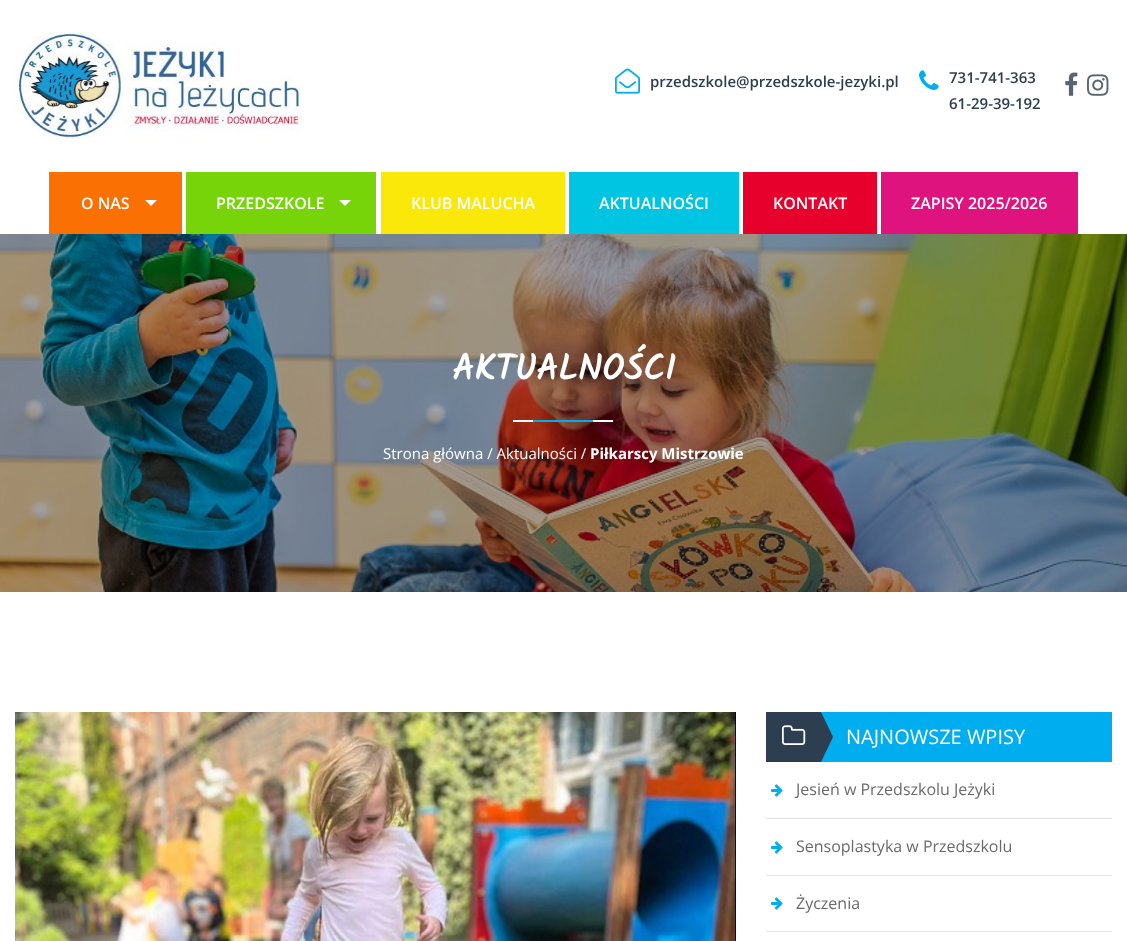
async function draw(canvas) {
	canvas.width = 1127;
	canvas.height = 941;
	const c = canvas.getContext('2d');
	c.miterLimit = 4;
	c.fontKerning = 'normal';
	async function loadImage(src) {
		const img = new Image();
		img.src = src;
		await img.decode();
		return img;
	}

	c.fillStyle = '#fff';
	c.fillRect(0, 0, 1127, 941);
	c.drawImage(await loadImage('img1.png'), 15, 32, 288, 108);
	c.drawImage(await loadImage('img2.png'), 615, 68, 25, 26);
	c.font = '600 15px Open Sans';
	c.fillStyle = '#2d3e50';
	c.fillText('przedszkole@przedszkole-jezyki.pl', 650, 87);
	c.drawImage(await loadImage('img3.png'), 919, 70, 20, 20);
	c.fillText('731-741-363', 949, 83);
	c.fillText('61-29-39-192', 949, 109);
	c.drawImage(await loadImage('img4.png'), 1065, 72, 13, 24);
	c.drawImage(await loadImage('img5.png'), 1087, 74, 22, 22);
	c.fillStyle = '#fb7002';
	c.fillRect(49, 172, 133, 62);
	c.font = '600 16px Open Sans';
	c.fillStyle = '#fff';
	c.fillText('O NAS', 81, 209);
	c.beginPath();
	c.moveTo(145, 200);
	c.lineTo(157, 200);
	c.lineTo(151, 206);
	c.closePath();
	c.fill();
	c.fillStyle = '#77d409';
	c.fillRect(186, 172, 190, 62);
	c.fillStyle = '#fff';
	c.fillText('PRZEDSZKOLE', 216, 209);
	c.beginPath();
	c.moveTo(339, 200);
	c.lineTo(351, 200);
	c.lineTo(345, 206);
	c.closePath();
	c.fill();
	c.fillStyle = '#f9e809';
	c.fillRect(381, 172, 184, 62);
	c.fillStyle = '#fff';
	c.fillText('KLUB MALUCHA', 411, 209);
	c.fillStyle = '#00c5e2';
	c.fillRect(569, 172, 170, 62);
	c.fillStyle = '#fff';
	c.fillText('AKTUALNOŚCI', 599, 209);
	c.fillStyle = '#e8002d';
	c.fillRect(743, 172, 134, 62);
	c.fillStyle = '#fff';
	c.fillText('KONTAKT', 773, 209);
	c.fillStyle = '#de137e';
	c.fillRect(881, 172, 197, 62);
	c.fillStyle = '#fff';
	c.fillText('ZAPISY 2025/2026', 911, 209);
	c.drawImage(await loadImage('img6.png'), 0, 234, 1127, 358);
	c.font = 'bold 36px Kalam';
	c.fillText('AKTUALNOŚCI', 452, 380);
	c.fillRect(513, 420, 100, 2);
	c.fillStyle = '#00adef';
	c.fillRect(533, 420, 60, 2);
	c.font = '15px Open Sans';
	c.fillStyle = '#fff';
	c.fillText('Strona główna / Aktualności /', 383, 459);
	c.font = 'bold 15px Open Sans';
	c.fillText('Piłkarscy Mistrzowie', 590, 459);
	c.drawImage(await loadImage('img7.png'), 15, 712, 721, 229);
	c.fillStyle = '#00adef';
	c.fillRect(821, 712, 291, 50);
	c.fillStyle = '#2d3e50';
	c.fillRect(766, 712, 55, 50);
	c.drawImage(await loadImage('img8.png'), 782, 725, 24, 20);
	c.beginPath();
	c.moveTo(821, 762);
	c.lineTo(821, 712);
	c.lineTo(833, 737);
	c.closePath();
	c.fill();
	c.font = '20px Open Sans';
	c.fillStyle = '#fff';
	c.fillText('NAJNOWSZE WPISY', 846, 744);
	c.fillStyle = '#e3e3e3';
	c.fillRect(766, 818, 346, 1);
	c.drawImage(await loadImage('img9.png'), 771, 784, 12, 13);
	c.font = '16px Open Sans';
	c.fillStyle = '#6a6a6a';
	c.fillText('Jesień w Przedszkolu Jeżyki', 796, 795);
	c.fillStyle = '#e3e3e3';
	c.fillRect(766, 875, 346, 1);
	c.drawImage(await loadImage('img9.png'), 771, 841, 12, 13);
	c.fillStyle = '#6a6a6a';
	c.fillText('Sensoplastyka w Przedszkolu', 796, 852);
	c.fillStyle = '#e3e3e3';
	c.fillRect(766, 931, 346, 1);
	c.drawImage(await loadImage('img9.png'), 771, 897, 12, 13);
	c.fillStyle = '#6a6a6a';
	c.fillText('Życzenia', 796, 909);
}

draw(document.querySelector('canvas'));
